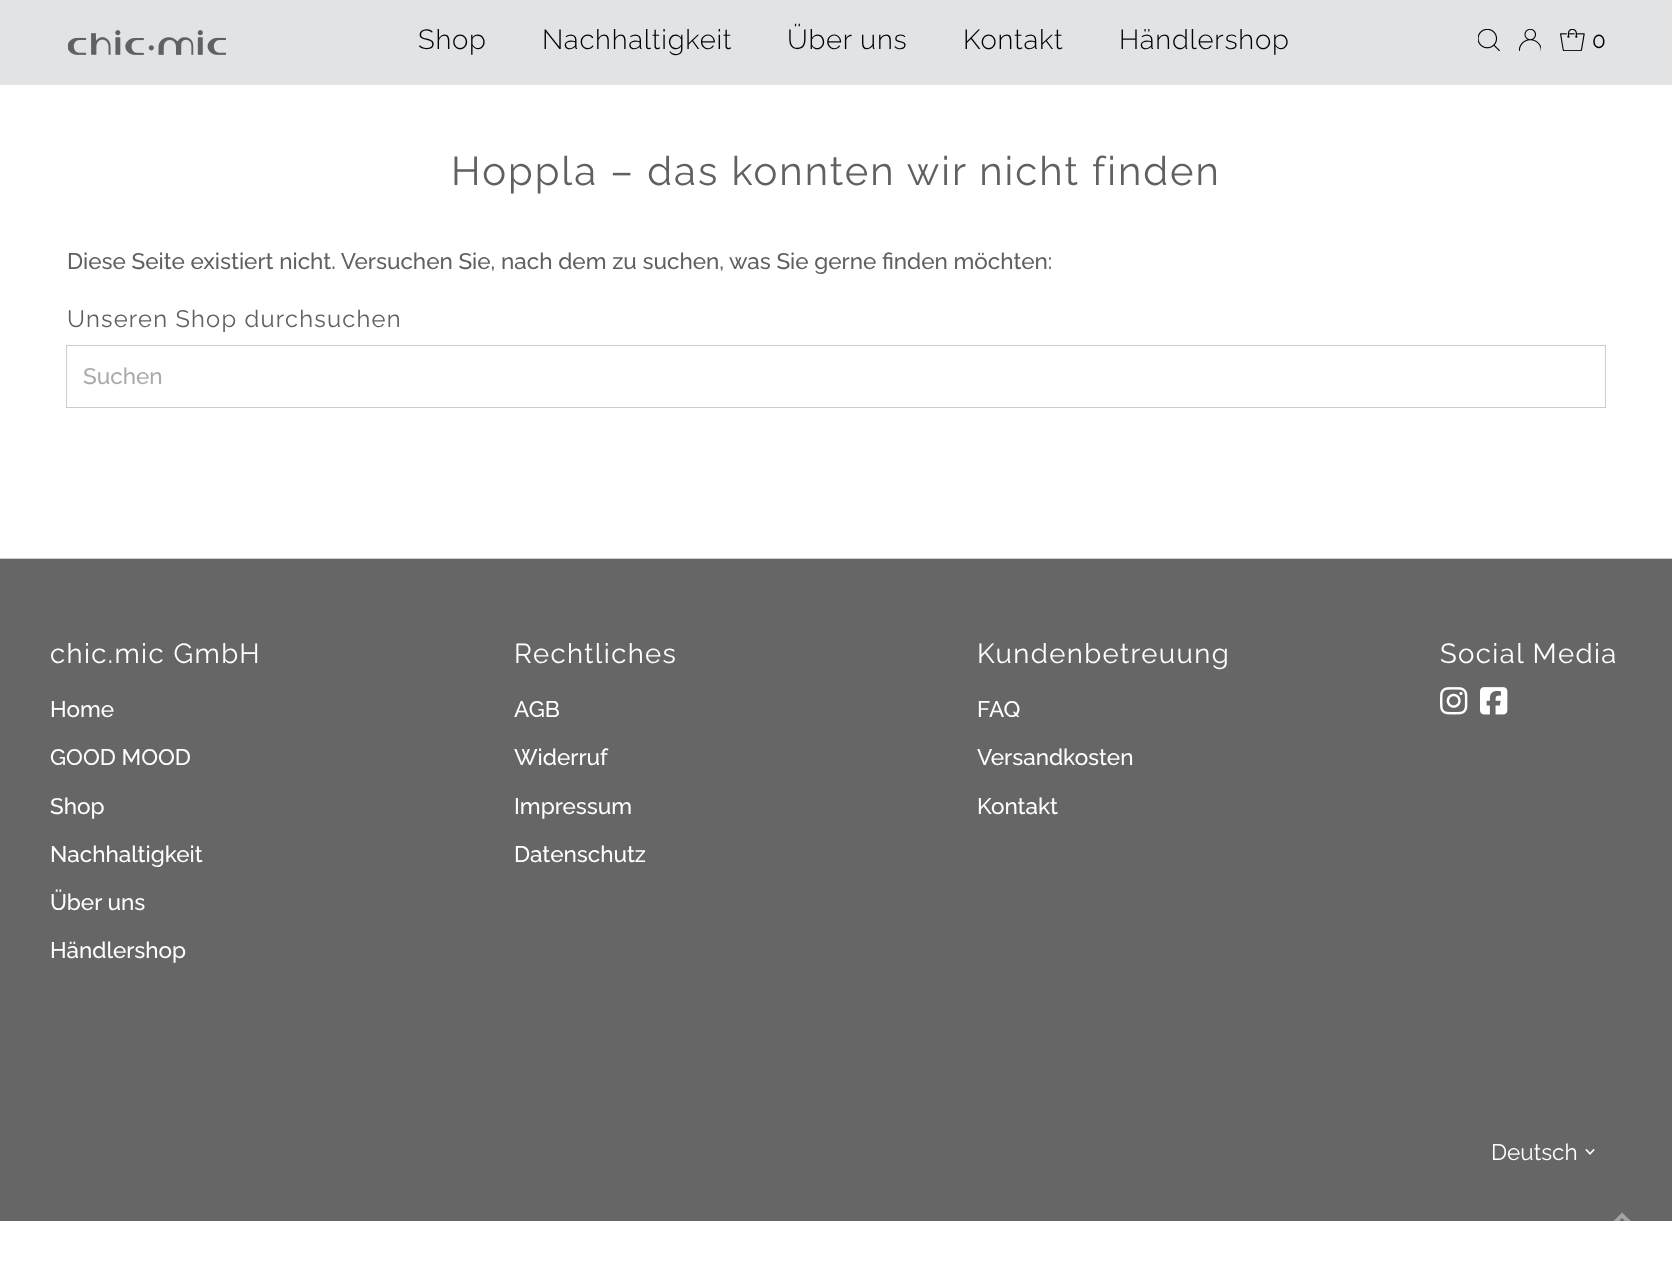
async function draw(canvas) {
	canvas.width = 1672;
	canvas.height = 1269;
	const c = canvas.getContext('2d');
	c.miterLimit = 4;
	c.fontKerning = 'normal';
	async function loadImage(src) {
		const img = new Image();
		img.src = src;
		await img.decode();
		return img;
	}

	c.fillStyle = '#fff';
	c.fillRect(0, 0, 1672, 1269);
	c.fillStyle = '#e1e3e5';
	c.fillRect(0, 0, 1672, 85);
	c.drawImage(await loadImage('img1.png'), 68, 30, 158, 25);
	c.letterSpacing = '0.75px';
	c.font = '300 27.5px Raleway';
	c.fillStyle = '#000';
	for (const [text, x, y] of [
		['Shop', 418, 49],
		['Nachhaltigkeit', 542, 49],
		['Über uns', 787, 49],
		['Kontakt', 963, 49],
		['Händlershop', 1119, 49],
	]) {
		c.fillText(text, x, y);
	}
	c.drawImage(await loadImage('img2.png'), 1478, 29, 22, 22);
	c.drawImage(await loadImage('img3.png'), 1519, 29, 22, 22);
	c.drawImage(await loadImage('img4.png'), 1560, 29, 25, 22);
	c.letterSpacing = '0px';
	c.font = '22.5px Raleway';
	c.fillText('0', 1592, 48);
	c.letterSpacing = '2px';
	c.font = '40px Raleway';
	c.fillStyle = '#606060';
	c.fillText('Hoppla – das konnten wir nicht finden', 451, 185);
	c.letterSpacing = '0px';
	c.font = '500 22.5px Raleway';
	c.fillText('Diese Seite existiert nicht. Versuchen Sie, nach dem zu suchen, was Sie gerne finden möchten:', 67, 269);
	c.letterSpacing = '1.2px';
	c.font = '23.75px Raleway';
	c.fillText('Unseren Shop durchsuchen', 67, 327);
	c.strokeStyle = '#ccc';
	c.strokeRect(66.5, 345.5, 1539, 62);
	c.letterSpacing = '0px';
	c.font = '500 22.5px Raleway';
	c.fillStyle = '#aaa';
	c.fillText('Suchen', 83, 384);
	c.fillStyle = '#666';
	c.fillRect(0, 559, 1672, 662);
	c.fillStyle = '#ccc';
	c.fillRect(0, 558, 1672, 1);
	c.letterSpacing = '1.4px';
	c.font = '27.5px Raleway';
	c.fillStyle = '#fff';
	c.fillText('chic.mic GmbH', 50, 663);
	c.letterSpacing = '0px';
	c.font = '500 22.5px Raleway';
	for (const [text, x, y] of [
		['Home', 50, 717],
		['GOOD MOOD', 50, 765],
		['Shop', 50, 814],
		['Nachhaltigkeit', 50, 862],
		['Über uns', 50, 910],
		['Händlershop', 50, 958],
	]) {
		c.fillText(text, x, y);
	}
	c.letterSpacing = '1.4px';
	c.font = '27.5px Raleway';
	c.fillText('Rechtliches', 514, 663);
	c.letterSpacing = '0px';
	c.font = '500 22.5px Raleway';
	for (const [text, x, y] of [
		['AGB', 514, 717],
		['Widerruf', 514, 765],
		['Impressum', 514, 814],
		['Datenschutz', 514, 862],
	]) {
		c.fillText(text, x, y);
	}
	c.letterSpacing = '1.4px';
	c.font = '27.5px Raleway';
	c.fillText('Kundenbetreuung', 977, 663);
	c.letterSpacing = '0px';
	c.font = '500 22.5px Raleway';
	for (const [text, x, y] of [
		['FAQ', 977, 717],
		['Versandkosten', 977, 765],
		['Kontakt', 977, 814],
	]) {
		c.fillText(text, x, y);
	}
	c.letterSpacing = '1.4px';
	c.font = '27.5px Raleway';
	c.fillText('Social Media', 1440, 663);
	c.drawImage(await loadImage('img5.png'), 1440, 687, 28, 28);
	c.drawImage(await loadImage('img6.png'), 1480, 687, 28, 28);
	c.letterSpacing = '0px';
	c.font = '22.5px Raleway';
	c.fillText('Deutsch', 1491, 1160);
	c.drawImage(await loadImage('img7.png'), 1585, 1149, 10, 6);
	c.fillStyle = '#ffffff66';
	c.beginPath();
	c.moveTo(1622, 1212.5);
	c.lineTo(1610, 1224.5);
	c.lineTo(1613, 1227.5);
	c.lineTo(1622, 1218);
	c.lineTo(1631.5, 1227.5);
	c.lineTo(1634.5, 1224.5);
	c.closePath();
	c.fill();
}

draw(document.querySelector('canvas'));
